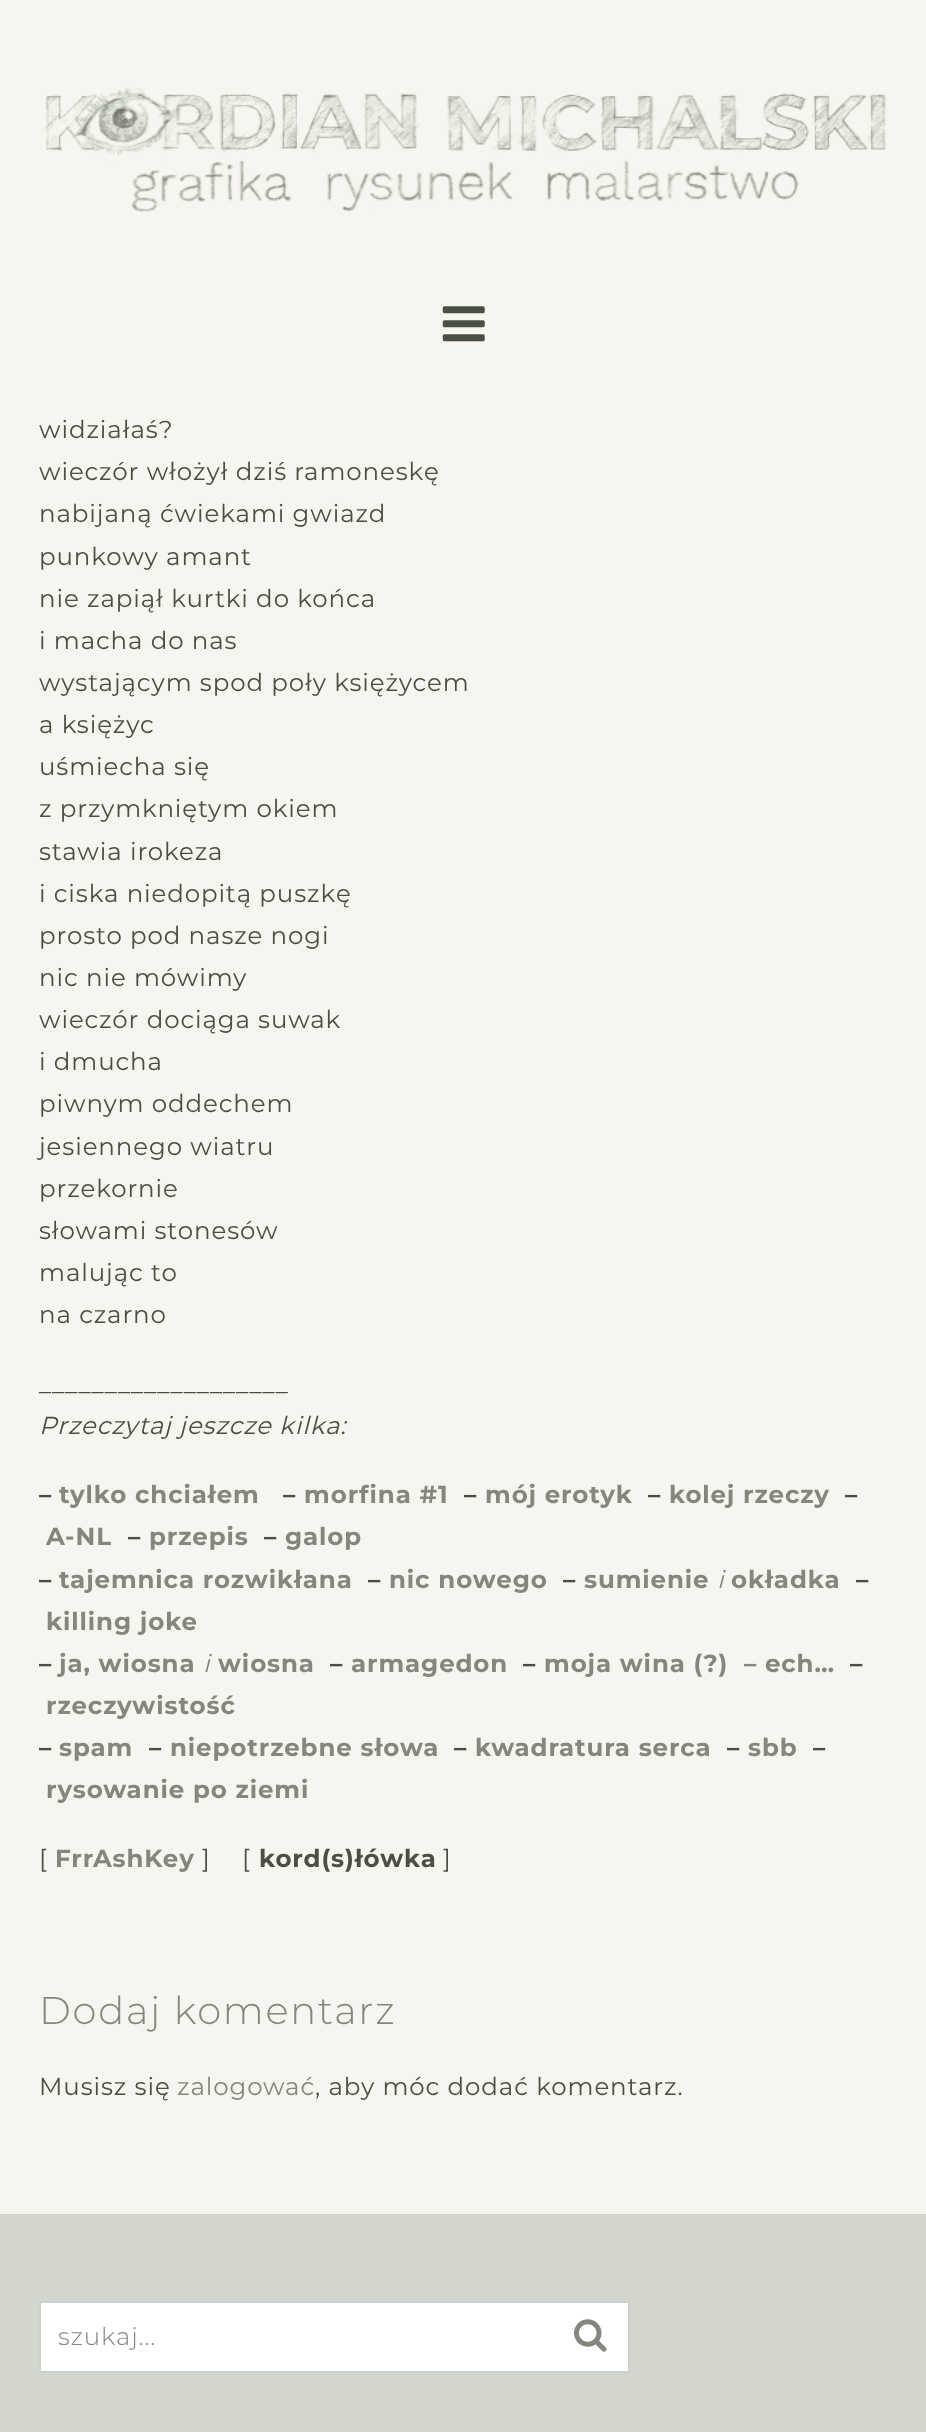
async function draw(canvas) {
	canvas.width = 926;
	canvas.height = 2432;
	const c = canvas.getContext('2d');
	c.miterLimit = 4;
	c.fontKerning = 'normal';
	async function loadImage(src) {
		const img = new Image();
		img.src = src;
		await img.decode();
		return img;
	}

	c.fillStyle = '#f7f5ef';
	c.fillRect(0, 0, 926, 2432);
	c.drawImage(await loadImage('img1.png'), 42, 87, 845, 125);
	c.drawImage(await loadImage('img2.png'), 442, 306, 43, 36);
	c.letterSpacing = '0.9px';
	c.font = '24.5px Montserrat';
	c.fillStyle = '#4a4f43';
	for (const [text, x, y] of [
		['widziałaś?', 39, 438],
		['wieczór włożył dziś ramoneskę', 39, 480],
		['nabijaną ćwiekami gwiazd', 39, 522],
		['punkowy amant', 39, 565],
		['nie zapiął kurtki do końca', 39, 607],
		['i macha do nas', 39, 649],
		['wystającym spod poły księżycem', 39, 691],
		['a księżyc', 39, 733],
		['uśmiecha się', 39, 775],
		['z przymkniętym okiem', 39, 817],
		['stawia irokeza', 39, 860],
		['i ciska niedopitą puszkę', 39, 902],
		['prosto pod nasze nogi', 39, 944],
		['nic nie mówimy', 39, 986],
		['wieczór dociąga suwak', 39, 1028],
		['i dmucha', 39, 1070],
		['piwnym oddechem', 39, 1112],
		['jesiennego wiatru', 39, 1155],
		['przekornie', 39, 1197],
		['słowami stonesów', 39, 1239],
		['malując to', 39, 1281],
		['na czarno', 39, 1323],
	]) {
		c.fillText(text, x, y);
	}
	c.font = 'italic 24.5px Montserrat';
	c.fillText('___________________', 39, 1392);
	c.fillText('Przeczytaj jeszcze kilka:', 39, 1434);
	c.font = 'bold 24.5px Montserrat';
	c.fillText('–', 39, 1503);
	c.fillStyle = '#83877d';
	c.fillText('tylko chciałem', 59, 1503);
	c.fillStyle = '#4a4f43';
	c.fillText('–', 283, 1503);
	c.fillStyle = '#83877d';
	c.fillText('morfina #1', 304, 1503);
	c.fillStyle = '#4a4f43';
	c.fillText('–', 464, 1503);
	c.fillStyle = '#83877d';
	c.fillText('mój erotyk', 485, 1503);
	c.fillStyle = '#4a4f43';
	c.fillText('–', 648, 1503);
	c.fillStyle = '#83877d';
	c.fillText('kolej rzeczy', 669, 1503);
	c.fillStyle = '#4a4f43';
	c.fillText('–', 845, 1503);
	c.fillStyle = '#83877d';
	c.fillText('A-NL', 46, 1545);
	c.fillStyle = '#4a4f43';
	c.fillText('–', 128, 1545);
	c.fillStyle = '#83877d';
	c.fillText('przepis', 149, 1545);
	c.fillStyle = '#4a4f43';
	c.fillText('–', 264, 1545);
	c.fillStyle = '#83877d';
	c.fillText('galop', 285, 1545);
	c.fillStyle = '#4a4f43';
	c.fillText('–', 39, 1588);
	c.fillStyle = '#83877d';
	c.fillText('tajemnica rozwikłana', 59, 1588);
	c.fillStyle = '#4a4f43';
	c.fillText('–', 368, 1588);
	c.fillStyle = '#83877d';
	c.fillText('nic nowego', 389, 1588);
	c.fillStyle = '#4a4f43';
	c.fillText('–', 563, 1588);
	c.fillStyle = '#83877d';
	c.fillText('sumienie', 584, 1588);
	c.font = 'italic 24.5px Montserrat';
	c.fillText('i', 717, 1588);
	c.font = 'bold 24.5px Montserrat';
	c.fillText('okładka', 731, 1588);
	c.fillStyle = '#4a4f43';
	c.fillText('–', 856, 1588);
	c.fillStyle = '#83877d';
	c.fillText('killing joke', 46, 1630);
	c.fillStyle = '#4a4f43';
	c.fillText('–', 39, 1672);
	c.fillStyle = '#83877d';
	c.fillText('ja, wiosna', 59, 1672);
	c.font = 'italic 24.5px Montserrat';
	c.fillText('i', 203, 1672);
	c.font = 'bold 24.5px Montserrat';
	c.fillText('wiosna', 218, 1672);
	c.fillStyle = '#4a4f43';
	c.fillText('–', 330, 1672);
	c.fillStyle = '#83877d';
	c.fillText('armagedon', 351, 1672);
	c.fillStyle = '#4a4f43';
	c.fillText('–', 523, 1672);
	c.fillStyle = '#83877d';
	c.fillText('moja wina (?)', 544, 1672);
	c.fillText('– ech…', 744, 1672);
	c.fillStyle = '#4a4f43';
	c.fillText('–', 850, 1672);
	c.fillStyle = '#83877d';
	c.fillText('rzeczywistość', 46, 1714);
	c.fillStyle = '#4a4f43';
	c.fillText('–', 39, 1756);
	c.fillStyle = '#83877d';
	c.fillText('spam', 59, 1756);
	c.fillStyle = '#4a4f43';
	c.fillText('–', 149, 1756);
	c.fillStyle = '#83877d';
	c.fillText('niepotrzebne słowa', 170, 1756);
	c.fillStyle = '#4a4f43';
	c.fillText('–', 454, 1756);
	c.fillStyle = '#83877d';
	c.fillText('kwadratura serca', 475, 1756);
	c.fillStyle = '#4a4f43';
	c.fillText('–', 727, 1756);
	c.fillStyle = '#83877d';
	c.fillText('sbb', 748, 1756);
	c.fillStyle = '#4a4f43';
	c.fillText('–', 813, 1756);
	c.fillStyle = '#83877d';
	c.fillText('rysowanie po ziemi', 46, 1798);
	c.font = '24.5px Montserrat';
	c.fillStyle = '#4a4f43';
	c.fillText('[', 39, 1867);
	c.font = 'bold 24.5px Montserrat';
	c.fillStyle = '#83877d';
	c.fillText('FrrAshKey', 55, 1867);
	c.font = '24.5px Montserrat';
	c.fillStyle = '#4a4f43';
	c.fillText(']', 202, 1867);
	c.fillText('[', 242, 1867);
	c.font = 'bold 24.5px Montserrat';
	c.fillText('kord(s)łówka', 259, 1867);
	c.font = '24.5px Montserrat';
	c.fillText(']', 443, 1867);
	c.letterSpacing = '1.75px';
	c.font = '300 38.5px Montserrat';
	c.fillStyle = '#83877d';
	c.fillText('Dodaj komentarz', 39, 2024);
	c.letterSpacing = '0.9px';
	c.font = '24.5px Montserrat';
	c.fillStyle = '#4a4f43';
	c.fillText('Musisz się', 39, 2095);
	c.fillStyle = '#83877d';
	c.fillText('zalogować', 177, 2095);
	c.fillStyle = '#4a4f43';
	c.fillText(', aby móc dodać komentarz.', 315, 2095);
	for (const [x, y, w, h, color] of [
		[0, 2214, 926, 218, '#d2d6cb'],
		[41, 2303, 587, 68, '#fff'],
		[39, 2301, 591, 2, '#cacfd0'],
		[39, 2371, 481, 2, '#cacfd0'],
		[39, 2301, 2, 72, '#cacfd0'],
	]) {
		c.fillStyle = color;
		c.fillRect(x, y, w, h);
	}
	c.font = '300 24.5px Montserrat';
	c.fillStyle = '#83877d';
	c.fillText('szukaj...', 58, 2345);
	c.fillStyle = '#cacfd0';
	c.fillRect(628, 2301, 2, 72);
	c.fillRect(520, 2371, 110, 2);
	c.drawImage(await loadImage('img3.png'), 574, 2319, 33, 33);
}

draw(document.querySelector('canvas'));
